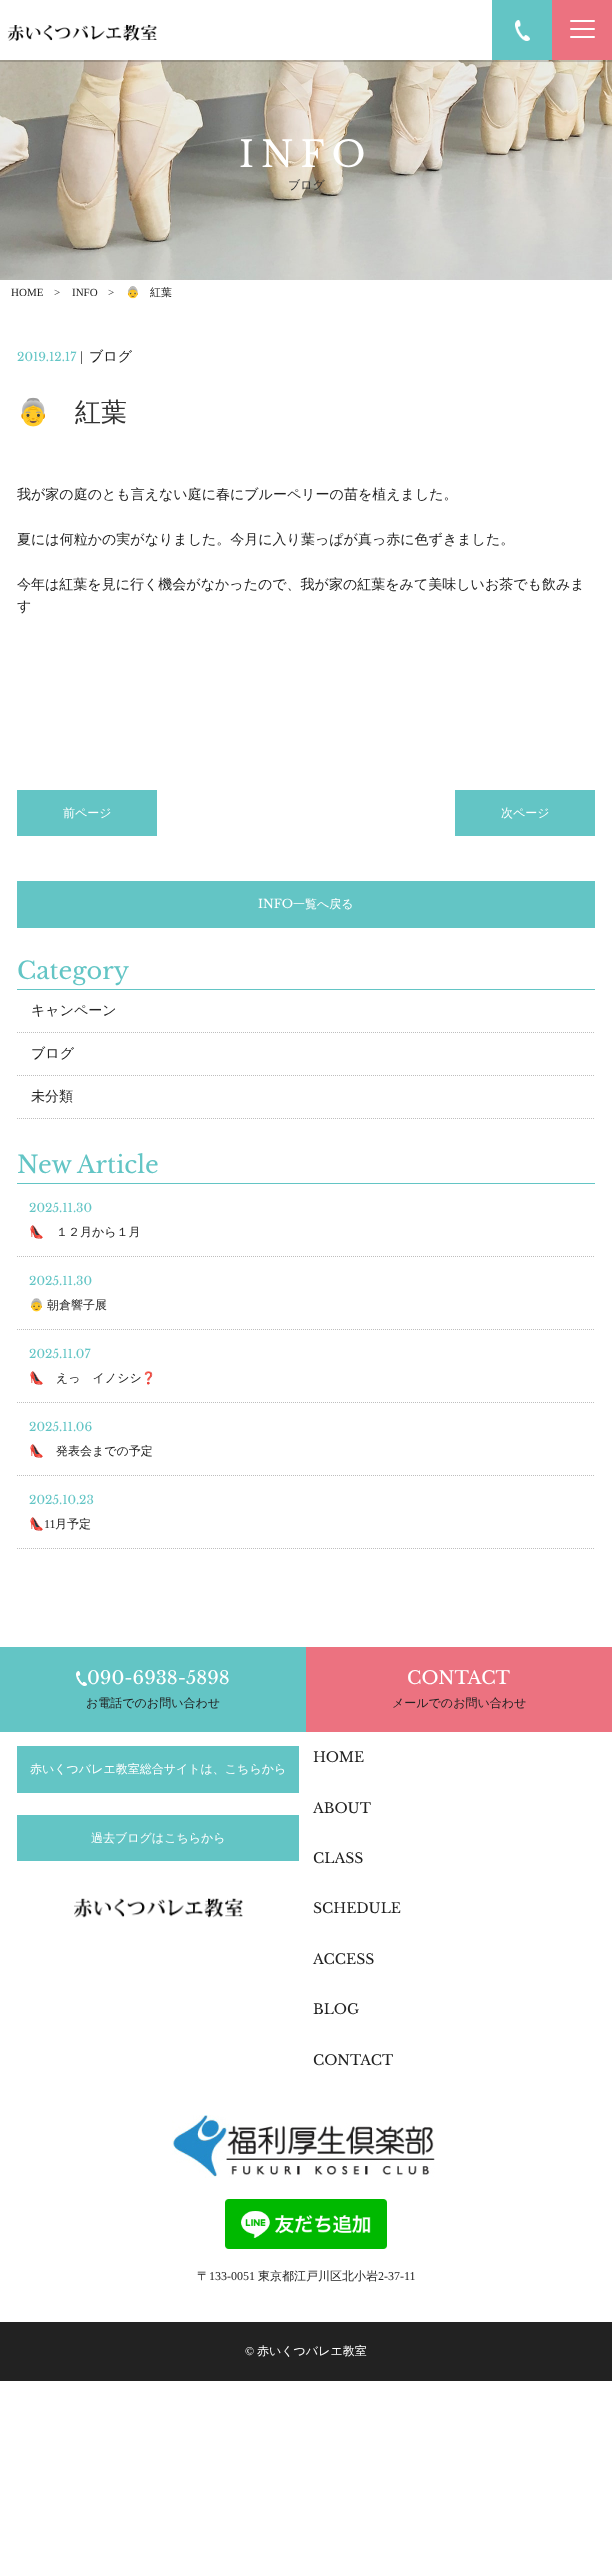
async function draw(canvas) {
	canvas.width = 612;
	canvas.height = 2575;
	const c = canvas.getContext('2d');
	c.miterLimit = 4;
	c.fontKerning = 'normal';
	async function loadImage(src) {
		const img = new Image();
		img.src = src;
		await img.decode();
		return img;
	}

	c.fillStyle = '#fff';
	c.fillRect(0, 0, 612, 2575);
	c.drawImage(await loadImage('img3.png'), 0, 60, 612, 220);
	c.save();
	c.beginPath();
	c.rect(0, 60, 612, 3);
	c.clip();
	c.fillStyle = '#1e1e1e33';
	c.filter = 'blur(0.5px)';
	c.beginPath();
	c.rect(-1, 0, 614, 62);
	c.fill();
	c.filter = 'none';
	c.restore();
	c.drawImage(await loadImage('img1.png'), 7, 24, 150, 17);
	c.fillStyle = '#63c5c5';
	c.fillRect(492, 0, 60, 60);
	c.drawImage(await loadImage('img2.png'), 515, 20, 15, 21);
	c.fillStyle = '#ec7280';
	c.fillRect(552, 0, 60, 60);
	c.fillStyle = '#fff';
	c.beginPath();
	c.roundRect(570, 28, 25, 2, 1);
	c.fill();
	c.beginPath();
	c.roundRect(570, 20, 25, 2, 1);
	c.fill();
	c.beginPath();
	c.roundRect(570, 36, 25, 2, 1);
	c.fill();
	c.letterSpacing = '7px';
	c.font = '36px Libre Baskerville';
	c.fillText('INFO', 239, 167);
	c.letterSpacing = '0px';
	c.font = '500 12px WenQuanYi Zen Hei';
	c.fillStyle = '#333';
	c.fillText('ブログ', 288, 189);
	c.font = '11px Liberation Serif';
	c.fillStyle = '#222';
	for (const [text, x, y] of [
		['HOME', 11, 296],
		['>', 54, 296],
		['INFO', 72, 296],
		['>', 108, 296],
	]) {
		c.fillText(text, x, y);
	}
	c.font = '11px Noto Color Emoji';
	c.fillText('👵', 126, 296);
	c.font = '500 11px WenQuanYi Zen Hei';
	c.fillText('紅葉', 150, 296);
	c.font = '12px Libre Baskerville';
	c.fillStyle = '#63c5c5';
	c.fillText('2019.12.17', 17, 361);
	c.font = '14px Liberation Serif';
	c.fillStyle = '#222';
	c.fillText('|', 80, 361);
	c.font = '500 14px WenQuanYi Zen Hei';
	c.fillText('ブログ', 89, 361);
	c.font = '26px Noto Color Emoji';
	c.fillStyle = '#333';
	c.fillText('👵', 17, 421);
	c.font = '500 26px WenQuanYi Zen Hei';
	c.fillText('紅葉', 75, 421);
	c.font = '500 14px WenQuanYi Zen Hei';
	c.fillStyle = '#222';
	for (const [text, x, y] of [
		['我が家の庭のとも言えない庭に春にブルーペリーの苗を植えました。', 17, 499],
		['夏には何粒かの実がなりました。今月に入り葉っぱが真っ赤に色ずきました。', 17, 544],
		['今年は紅葉を見に行く機会がなかったので、我が家の紅葉をみて美味しいお茶でも飲みま', 17, 589],
		['す', 17, 611],
	]) {
		c.fillText(text, x, y);
	}
	c.fillStyle = '#63c5c5';
	c.fillRect(17, 790, 140, 46);
	c.font = '500 12px WenQuanYi Zen Hei';
	c.fillStyle = '#fff';
	c.fillText('前ページ', 63, 817);
	c.fillStyle = '#63c5c5';
	c.fillRect(455, 790, 140, 46);
	c.fillStyle = '#fff';
	c.fillText('次ページ', 501, 817);
	c.fillStyle = '#63c5c5';
	c.fillRect(17, 881, 578, 47);
	c.font = '12px Libre Baskerville';
	c.fillStyle = '#fff';
	c.fillText('INFO', 258, 908);
	c.font = '500 12px WenQuanYi Zen Hei';
	c.fillText('一覧へ戻る', 293, 908);
	c.fillStyle = '#63c5c5';
	c.fillRect(17, 989, 578, 1);
	c.font = '24px Libre Baskerville';
	c.fillText('Category', 17, 979);
	c.beginPath();
	c.moveTo(17, 1032.5);
	c.lineTo(595, 1032.5);
	c.strokeStyle = '#bebebe';
	c.setLineDash([1, 1]);
	c.stroke();
	c.font = '500 14px WenQuanYi Zen Hei';
	c.fillStyle = '#222';
	c.fillText('キャンペーン', 31, 1015);
	c.beginPath();
	c.moveTo(17, 1075.5);
	c.lineTo(595, 1075.5);
	c.stroke();
	c.fillText('ブログ', 31, 1058);
	c.beginPath();
	c.moveTo(17, 1118.5);
	c.lineTo(595, 1118.5);
	c.stroke();
	c.fillText('未分類', 31, 1101);
	c.fillStyle = '#63c5c5';
	c.fillRect(17, 1183, 578, 1);
	c.font = '24px Libre Baskerville';
	c.fillText('New Article', 17, 1173);
	c.beginPath();
	c.moveTo(17, 1256.5);
	c.lineTo(595, 1256.5);
	c.stroke();
	c.font = '12px Libre Baskerville';
	c.fillText('2025.11.30', 29, 1212);
	c.font = '12px Noto Color Emoji';
	c.fillStyle = '#222';
	c.fillText('👠', 29, 1236);
	c.font = '500 12px WenQuanYi Zen Hei';
	c.fillText('１２月から１月', 56, 1236);
	c.beginPath();
	c.moveTo(17, 1329.5);
	c.lineTo(595, 1329.5);
	c.stroke();
	c.font = '12px Libre Baskerville';
	c.fillStyle = '#63c5c5';
	c.fillText('2025.11.30', 29, 1285);
	c.font = '12px Noto Color Emoji';
	c.fillStyle = '#222';
	c.fillText('👵', 29, 1309);
	c.font = '500 12px WenQuanYi Zen Hei';
	c.fillText('朝倉響子展', 47, 1309);
	c.beginPath();
	c.moveTo(17, 1402.5);
	c.lineTo(595, 1402.5);
	c.stroke();
	c.font = '12px Libre Baskerville';
	c.fillStyle = '#63c5c5';
	c.fillText('2025.11.07', 29, 1358);
	c.font = '12px Noto Color Emoji';
	c.fillStyle = '#222';
	c.fillText('👠', 29, 1382);
	c.font = '500 12px WenQuanYi Zen Hei';
	c.fillText('えっ　イノシシ', 56, 1382);
	c.font = '12px Noto Color Emoji';
	c.fillText('❓', 141, 1382);
	c.beginPath();
	c.moveTo(17, 1475.5);
	c.lineTo(595, 1475.5);
	c.stroke();
	c.font = '12px Libre Baskerville';
	c.fillStyle = '#63c5c5';
	c.fillText('2025.11.06', 29, 1431);
	c.font = '12px Noto Color Emoji';
	c.fillStyle = '#222';
	c.fillText('👠', 29, 1455);
	c.font = '500 12px WenQuanYi Zen Hei';
	c.fillText('発表会までの予定', 56, 1455);
	c.beginPath();
	c.moveTo(17, 1548.5);
	c.lineTo(595, 1548.5);
	c.stroke();
	c.font = '12px Libre Baskerville';
	c.fillStyle = '#63c5c5';
	c.fillText('2025.10.23', 29, 1504);
	c.font = '12px Noto Color Emoji';
	c.fillStyle = '#222';
	c.fillText('👠', 29, 1528);
	c.font = '12px Liberation Serif';
	c.fillText('11', 44, 1528);
	c.font = '500 12px WenQuanYi Zen Hei';
	c.fillText('月予定', 55, 1528);
	c.fillStyle = '#63c5c5';
	c.fillRect(0, 1647, 306, 85);
	c.drawImage(await loadImage('img4.png'), 76, 1671, 11, 15);
	c.font = '18px Libre Baskerville';
	c.fillStyle = '#fff';
	c.fillText('090-6938-5898', 87, 1684);
	c.font = '500 12px WenQuanYi Zen Hei';
	c.fillStyle = '#222';
	c.fillText('お電話でのお問い合わせ', 86, 1707);
	c.fillStyle = '#ec7280';
	c.fillRect(306, 1647, 306, 85);
	c.font = '18px Libre Baskerville';
	c.fillStyle = '#fff';
	c.fillText('CONTACT', 407, 1684);
	c.font = '500 12px WenQuanYi Zen Hei';
	c.fillStyle = '#222';
	c.fillText('メールでのお問い合わせ', 392, 1707);
	c.fillStyle = '#63c5c5';
	c.fillRect(17, 1746, 282, 47);
	c.fillStyle = '#fff';
	c.fillText('赤いくつバレエ教室総合サイトは、こちらから', 30, 1773);
	c.fillStyle = '#63c5c5';
	c.fillRect(17, 1815, 282, 46);
	c.fillStyle = '#fff';
	c.fillText('過去ブログはこちらから', 91, 1842);
	c.drawImage(await loadImage('img5.png'), 74, 1898, 169, 20);
	c.font = '14px Libre Baskerville';
	c.fillStyle = '#222';
	for (const [text, x, y] of [
		['HOME', 313, 1762],
		['ABOUT', 313, 1813],
		['CLASS', 313, 1863],
		['SCHEDULE', 313, 1913],
		['ACCESS', 313, 1964],
		['BLOG', 313, 2014],
		['CONTACT', 313, 2065],
	]) {
		c.fillText(text, x, y);
	}
	c.drawImage(await loadImage('img6.png'), 172, 2115, 263, 63);
	c.drawImage(await loadImage('img7.png'), 225, 2199, 162, 50);
	c.font = '500 12px WenQuanYi Zen Hei';
	c.fillText('〒', 197, 2280);
	c.font = '12px Liberation Serif';
	c.fillText('133-0051', 209, 2280);
	c.font = '500 12px WenQuanYi Zen Hei';
	c.fillText('東京都江戸川区北小岩', 258, 2280);
	c.font = '12px Liberation Serif';
	c.fillText('2-37-11', 378, 2280);
	c.fillRect(0, 2322, 612, 59);
	c.fillStyle = '#fff';
	c.fillText('©', 245, 2355);
	c.font = '500 12px WenQuanYi Zen Hei';
	c.fillText('赤いくつバレエ教室', 257, 2355);
}

draw(document.querySelector('canvas'));
